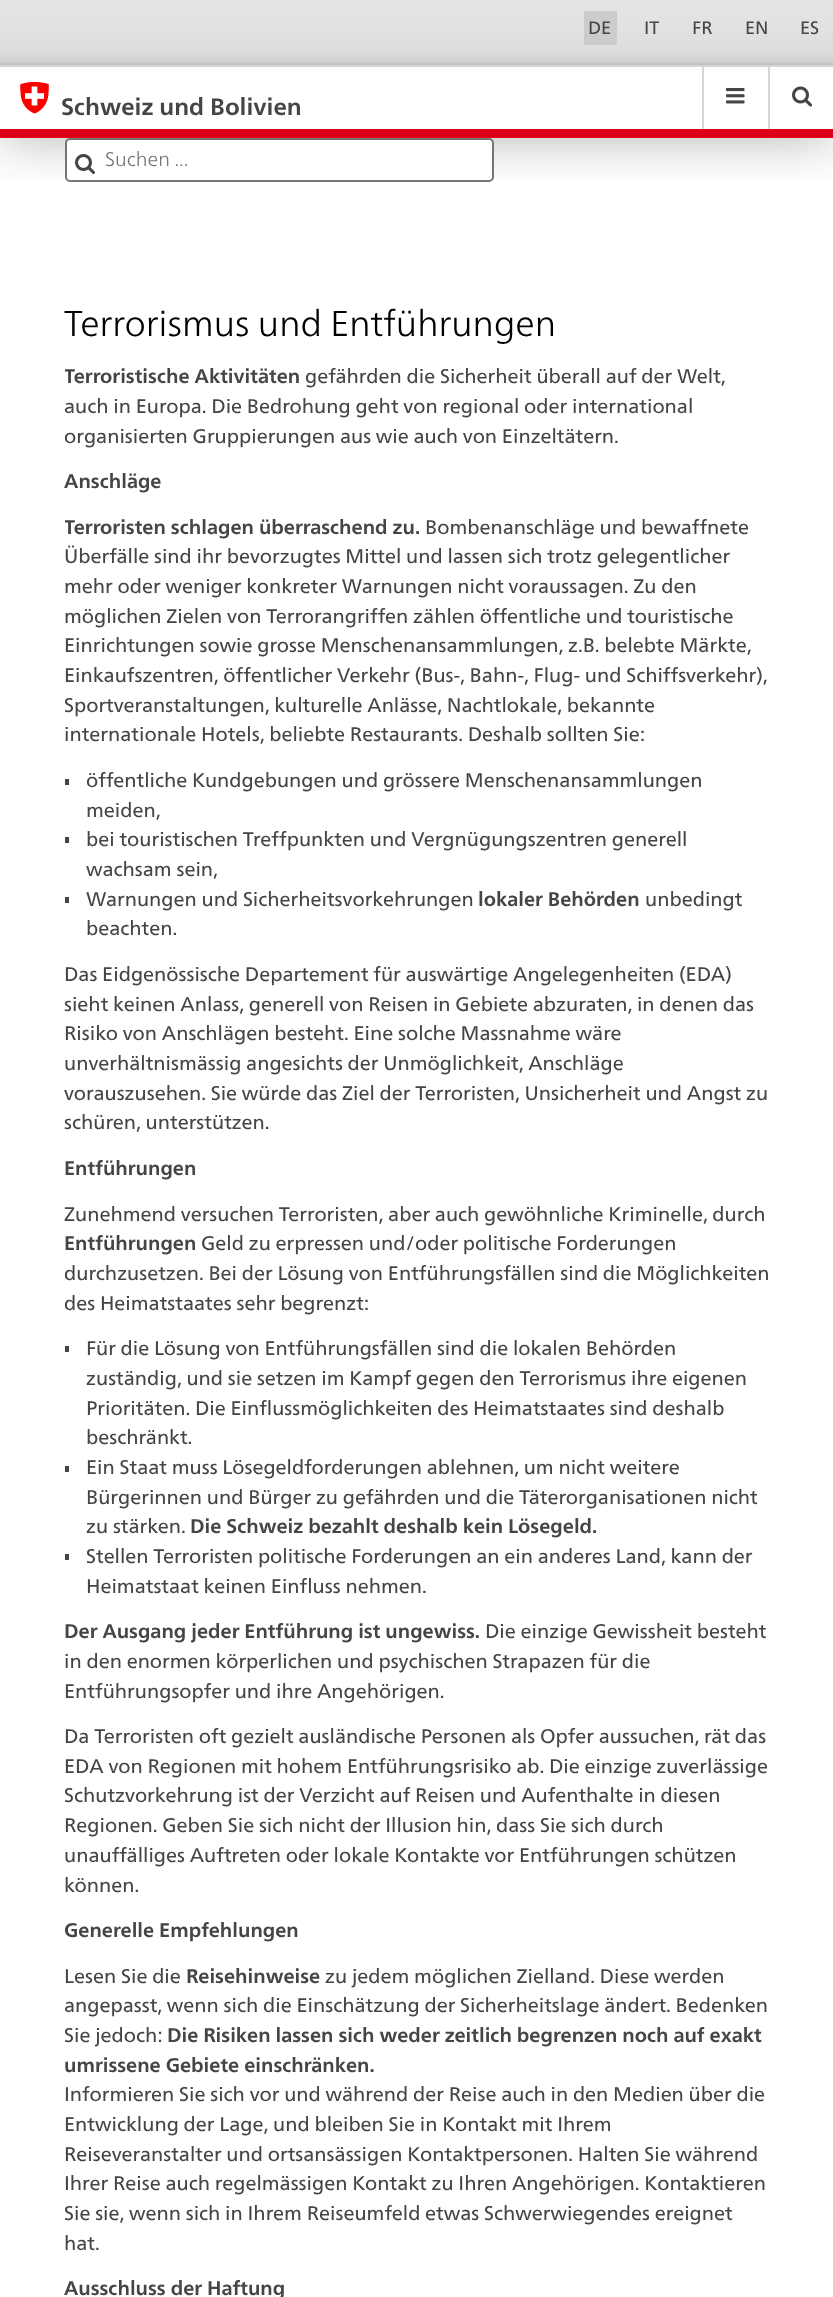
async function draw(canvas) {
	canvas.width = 833;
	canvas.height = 2297;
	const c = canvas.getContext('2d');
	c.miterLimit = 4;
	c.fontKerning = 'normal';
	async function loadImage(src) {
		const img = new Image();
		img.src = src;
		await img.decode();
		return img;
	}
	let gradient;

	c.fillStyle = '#fff';
	c.fillRect(0, 0, 833, 2297);
	c.save();
	c.beginPath();
	c.rect(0, 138, 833, 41);
	c.clip();
	c.fillStyle = '#0000004d';
	c.filter = 'blur(27px)';
	c.beginPath();
	c.rect(0, 66, 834, 72);
	c.fill();
	c.filter = 'none';
	c.restore();
	gradient = c.createLinearGradient(417, 0, 417, 65);
	gradient.addColorStop(0, '#e4e4e4');
	gradient.addColorStop(0.39, '#e2e2e2');
	gradient.addColorStop(0.79, '#ddd');
	gradient.addColorStop(0.91, '#d5d5d5');
	gradient.addColorStop(0.95, '#cfcfcf');
	gradient.addColorStop(1, '#bebebe');
	c.fillStyle = gradient;
	c.fillRect(0, 0, 833, 65);
	for (const [x, y, w, h, color] of [
		[702, 66, 2, 63, '#d5d5d5'],
		[768, 66, 2, 63, '#d5d5d5'],
		[0, 65, 833, 2, '#d5d5d5'],
		[584, 11, 33, 34, '#ccc'],
	]) {
		c.fillStyle = color;
		c.fillRect(x, y, w, h);
	}
	c.font = '18px "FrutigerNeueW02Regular"';
	c.fillStyle = '#454545';
	for (const [text, x, y] of [
		['DE', 588, 34],
		['IT', 644, 34],
		['FR', 692, 34],
		['EN', 745, 34],
		['ES', 800, 34],
	]) {
		c.fillText(text, x, y);
	}
	c.fillStyle = '#dc0018';
	c.fillRect(0, 129, 833, 9);
	c.drawImage(await loadImage('img1.png'), 20, 81, 29, 33);
	c.font = 'bold 23.75px "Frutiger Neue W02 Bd"';
	c.fillStyle = '#454545';
	c.fillText('Schweiz und Bolivien', 61, 115);
	c.drawImage(await loadImage('img2.png'), 726, 88, 19, 16);
	c.drawImage(await loadImage('img3.png'), 792, 86, 20, 21);
	c.fillStyle = '#fff';
	c.beginPath();
	c.roundRect(66, 139, 427, 42, 4);
	c.fill();
	c.strokeStyle = '#757575';
	c.lineWidth = 2;
	c.stroke();
	c.drawImage(await loadImage('img4.png'), 75, 154, 20, 20);
	c.font = '300 19.8px "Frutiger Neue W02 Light"';
	c.fillStyle = '#757575';
	c.fillText('Suchen ...', 105, 166);
	c.font = '300 36px "Frutiger Neue W02 Light"';
	c.fillStyle = '#000';
	c.fillText('Terrorismus und Entführungen', 64, 336);
	c.save();
	c.beginPath();
	c.rect(65, 347, 705, 1912);
	c.clip();
	c.font = 'bold 19.8px "Frutiger Neue W02 Bd"';
	c.fillStyle = '#454545';
	c.fillText('Terroristische Aktivitäten', 64, 383);
	c.restore();
	c.font = '19.8px "FrutigerNeueW02Regular"';
	c.fillStyle = '#454545';
	for (const [text, x, y] of [
		['gefährden die Sicherheit überall auf der Welt,', 305, 383],
		['auch in Europa. Die Bedrohung geht von regional oder international', 64, 413],
		['organisierten Gruppierungen aus wie auch von Einzeltätern.', 64, 443],
	]) {
		c.fillText(text, x, y);
	}
	c.font = 'bold 19.8px "Frutiger Neue W02 Bd"';
	c.fillText('Anschläge', 64, 488);
	c.save();
	c.beginPath();
	c.rect(65, 347, 705, 1912);
	c.clip();
	c.fillText('Terroristen schlagen überraschend zu.', 64, 534);
	c.restore();
	c.font = '19.8px "FrutigerNeueW02Regular"';
	for (const [text, x, y] of [
		['Bombenanschläge und bewaffnete', 425, 534],
		['Überfälle sind ihr bevorzugtes Mittel und lassen sich trotz gelegentlicher', 64, 563],
		['mehr oder weniger konkreter Warnungen nicht voraussagen. Zu den', 64, 593],
		['möglichen Zielen von Terrorangriffen zählen öffentliche und touristische', 64, 623],
		['Einrichtungen sowie grosse Menschenansammlungen, z.B. belebte Märkte,', 64, 652],
		['Einkaufszentren, öffentlicher Verkehr (Bus-, Bahn-, Flug- und Schiffsverkehr),', 64, 682],
		['Sportveranstaltungen, kulturelle Anlässe, Nachtlokale, bekannte', 64, 712],
		['internationale Hotels, beliebte Restaurants. Deshalb sollten Sie:', 64, 741],
	]) {
		c.fillText(text, x, y);
	}
	c.fillRect(65, 779, 4, 6);
	c.fillText('öffentliche Kundgebungen und grössere Menschenansammlungen', 86, 787);
	c.fillText('meiden,', 86, 817);
	c.fillRect(65, 837, 4, 6);
	c.fillText('bei touristischen Treffpunkten und Vergnügungszentren generell', 86, 846);
	c.fillText('wachsam sein,', 86, 876);
	c.fillRect(65, 897, 4, 6);
	c.fillText('Warnungen und Sicherheitsvorkehrungen', 86, 906);
	c.font = 'bold 19.8px "Frutiger Neue W02 Bd"';
	c.fillText('lokaler Behörden', 478, 906);
	c.font = '19.8px "FrutigerNeueW02Regular"';
	for (const [text, x, y] of [
		['unbedingt', 645, 906],
		['beachten.', 86, 935],
		['Das Eidgenössische Departement für auswärtige Angelegenheiten (EDA)', 64, 981],
		['sieht keinen Anlass, generell von Reisen in Gebiete abzuraten, in denen das', 64, 1011],
		['Risiko von Anschlägen besteht. Eine solche Massnahme wäre', 64, 1040],
		['unverhältnismässig angesichts der Unmöglichkeit, Anschläge', 64, 1070],
		['vorauszusehen. Sie würde das Ziel der Terroristen, Unsicherheit und Angst zu', 64, 1100],
		['schüren, unterstützen.', 64, 1129],
	]) {
		c.fillText(text, x, y);
	}
	c.font = 'bold 19.8px "Frutiger Neue W02 Bd"';
	c.fillText('Entführungen', 64, 1175);
	c.font = '19.8px "FrutigerNeueW02Regular"';
	c.fillText('Zunehmend versuchen Terroristen, aber auch gewöhnliche Kriminelle, durch', 64, 1221);
	c.font = 'bold 19.8px "Frutiger Neue W02 Bd"';
	c.fillText('Entführungen', 64, 1250);
	c.font = '19.8px "FrutigerNeueW02Regular"';
	for (const [text, x, y] of [
		['Geld zu erpressen und/oder politische Forderungen', 201, 1250],
		['durchzusetzen. Bei der Lösung von Entführungsfällen sind die Möglichkeiten', 64, 1280],
		['des Heimatstaates sehr begrenzt:', 64, 1310],
	]) {
		c.fillText(text, x, y);
	}
	c.fillRect(65, 1346, 4, 6);
	for (const [text, x, y] of [
		['Für die Lösung von Entführungsfällen sind die lokalen Behörden', 86, 1355],
		['zuständig, und sie setzen im Kampf gegen den Terrorismus ihre eigenen', 86, 1385],
		['Prioritäten. Die Einflussmöglichkeiten des Heimatstaates sind deshalb', 86, 1415],
		['beschränkt.', 86, 1444],
	]) {
		c.fillText(text, x, y);
	}
	c.fillRect(65, 1466, 4, 6);
	for (const [text, x, y] of [
		['Ein Staat muss Lösegeldforderungen ablehnen, um nicht weitere', 86, 1474],
		['Bürgerinnen und Bürger zu gefährden und die Täterorganisationen nicht', 86, 1504],
		['zu stärken.', 86, 1533],
	]) {
		c.fillText(text, x, y);
	}
	c.font = 'bold 19.8px "Frutiger Neue W02 Bd"';
	c.fillText('Die Schweiz bezahlt deshalb kein Lösegeld.', 190, 1533);
	c.fillRect(65, 1554, 4, 6);
	c.font = '19.8px "FrutigerNeueW02Regular"';
	c.fillText('Stellen Terroristen politische Forderungen an ein anderes Land, kann der', 86, 1563);
	c.fillText('Heimatstaat keinen Einfluss nehmen.', 86, 1593);
	c.font = 'bold 19.8px "Frutiger Neue W02 Bd"';
	c.fillText('Der Ausgang jeder Entführung ist ungewiss.', 64, 1638);
	c.font = '19.8px "FrutigerNeueW02Regular"';
	for (const [text, x, y] of [
		['Die einzige Gewissheit besteht', 485, 1638],
		['in den enormen körperlichen und psychischen Strapazen für die', 64, 1668],
		['Entführungsopfer und ihre Angehörigen.', 64, 1698],
		['Da Terroristen oft gezielt ausländische Personen als Opfer aussuchen, rät das', 64, 1743],
		['EDA von Regionen mit hohem Entführungsrisiko ab. Die einzige zuverlässige', 64, 1773],
		['Schutzvorkehrung ist der Verzicht auf Reisen und Aufenthalte in diesen', 64, 1802],
		['Regionen. Geben Sie sich nicht der Illusion hin, dass Sie sich durch', 64, 1832],
		['unauffälliges Auftreten oder lokale Kontakte vor Entführungen schützen', 64, 1862],
		['können.', 64, 1892],
	]) {
		c.fillText(text, x, y);
	}
	c.font = 'bold 19.8px "Frutiger Neue W02 Bd"';
	c.fillText('Generelle Empfehlungen', 64, 1937);
	c.font = '19.8px "FrutigerNeueW02Regular"';
	c.fillText('Lesen Sie die', 64, 1983);
	c.font = 'bold 19.8px "Frutiger Neue W02 Bd"';
	c.fillText('Reisehinweise', 186, 1983);
	c.font = '19.8px "FrutigerNeueW02Regular"';
	for (const [text, x, y] of [
		['zu jedem möglichen Zielland. Diese werden', 325, 1983],
		['angepasst, wenn sich die Einschätzung der Sicherheitslage ändert. Bedenken', 64, 2012],
		['Sie jedoch:', 64, 2042],
	]) {
		c.fillText(text, x, y);
	}
	c.font = 'bold 19.8px "Frutiger Neue W02 Bd"';
	c.fillText('Die Risiken lassen sich weder zeitlich begrenzen noch auf exakt', 167, 2042);
	c.fillText('umrissene Gebiete einschränken.', 64, 2072);
	c.font = '19.8px "FrutigerNeueW02Regular"';
	for (const [text, x, y] of [
		['Informieren Sie sich vor und während der Reise auch in den Medien über die', 64, 2101],
		['Entwicklung der Lage, und bleiben Sie in Kontakt mit Ihrem', 64, 2131],
		['Reiseveranstalter und ortsansässigen Kontaktpersonen. Halten Sie während', 64, 2161],
		['Ihrer Reise auch regelmässigen Kontakt zu Ihren Angehörigen. Kontaktieren', 64, 2190],
		['Sie sie, wenn sich in Ihrem Reiseumfeld etwas Schwerwiegendes ereignet', 64, 2220],
		['hat.', 64, 2250],
	]) {
		c.fillText(text, x, y);
	}
	c.font = 'bold 19.8px "Frutiger Neue W02 Bd"';
	c.fillText('Ausschluss der Haftung', 64, 2295);
}

draw(document.querySelector('canvas'));
